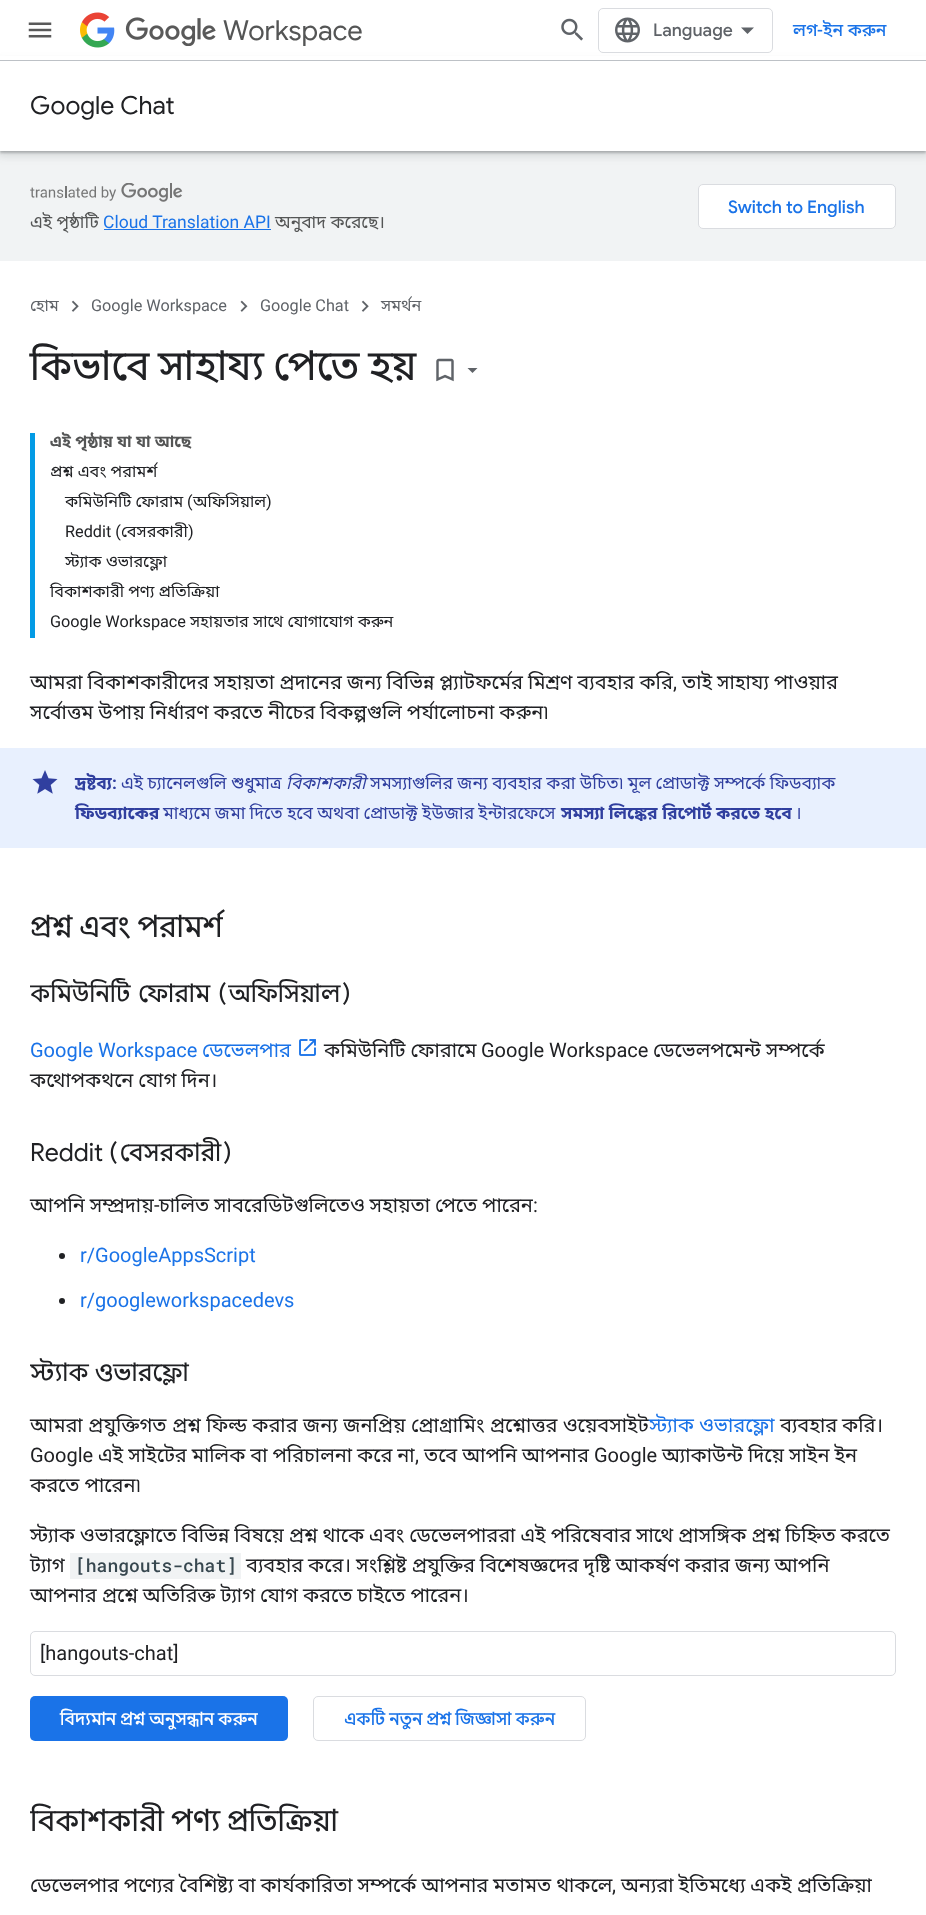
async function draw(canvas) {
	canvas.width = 926;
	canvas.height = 1915;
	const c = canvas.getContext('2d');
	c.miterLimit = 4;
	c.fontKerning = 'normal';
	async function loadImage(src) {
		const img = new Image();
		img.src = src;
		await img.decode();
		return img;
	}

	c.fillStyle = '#fff';
	c.fillRect(0, 0, 926, 1915);
	c.fillStyle = '#f1f3f4';
	c.fillRect(0, 151, 926, 110);
	c.fillStyle = '#3c404326';
	c.filter = 'blur(4px)';
	c.beginPath();
	c.rect(-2, 61, 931, 95);
	c.fill();
	c.filter = 'none';
	c.fillStyle = '#3c40434d';
	c.filter = 'blur(1px)';
	c.beginPath();
	c.rect(0, 63, 926, 90);
	c.fill();
	c.filter = 'none';
	c.fillStyle = '#fff';
	c.fillRect(0, 56, 926, 4);
	c.fillStyle = '#bdc1c6';
	c.fillRect(0, 60, 926, 1);
	c.drawImage(await loadImage('img1.png'), 28, 22, 24, 16);
	c.drawImage(await loadImage('img2.png'), 80, 12, 35, 36);
	c.drawImage(await loadImage('img3.png'), 125, 17, 91, 29);
	c.font = '27.5px Google Sans';
	c.fillStyle = '#545555';
	c.fillText('Workspace', 223, 40);
	c.drawImage(await loadImage('img4.png'), 561, 18, 22, 23);
	c.beginPath();
	c.roundRect(598.5, 8.5, 174, 44, 4.5);
	c.strokeStyle = '#dadce0';
	c.stroke();
	c.drawImage(await loadImage('img5.png'), 615, 17, 25, 26);
	c.font = '500 17.5px Google Sans';
	c.fillStyle = '#5f6368';
	c.fillText('Language', 653, 36);
	c.beginPath();
	c.moveTo(747.5, 34);
	c.lineTo(741, 27.5);
	c.lineTo(754, 27.5);
	c.closePath();
	c.fill();
	c.font = '500 17.5px Noto Sans Bengali';
	c.fillStyle = '#1a73e8';
	c.fillText('লগ', 793, 36);
	c.font = '500 17.5px Roboto';
	c.fillText('-', 817, 36);
	c.font = '500 17.5px Noto Sans Bengali';
	c.fillText('ইন করুন', 823, 36);
	c.fillStyle = '#fff';
	c.fillRect(0, 61, 926, 90);
	c.font = '25px Google Sans';
	c.fillStyle = '#202124';
	c.fillText('Google Chat', 30, 114);
	c.fillStyle = '#fff';
	c.beginPath();
	c.roundRect(698.5, 184.5, 197, 44, 4.5);
	c.fill();
	c.stroke();
	c.font = '500 17.5px Google Sans';
	c.fillStyle = '#1a73e8';
	c.fillText('Switch to English', 728, 213);
	c.drawImage(await loadImage('img6.png'), 30, 183, 153, 19);
	c.wordSpacing = '-0.25px';
	c.font = '17.5px Noto Sans Bengali';
	c.fillStyle = '#545555';
	c.fillText('এই পৃষ্ঠাটি', 30, 228);
	c.wordSpacing = '0px';
	c.font = '17.5px Roboto';
	c.fillStyle = '#1a73e8';
	c.fillText('Cloud Translation API', 103, 228);
	c.fillRect(104, 229, 167, 1);
	c.font = '17.5px Noto Sans Bengali';
	c.fillStyle = '#545555';
	c.fillText('অনুবাদ করেছে।', 275, 228);
	c.font = '16.25px Noto Sans Bengali';
	c.fillStyle = '#5f6368';
	c.fillText('হোম', 30, 311);
	c.drawImage(await loadImage('img7.png'), 71, 300, 8, 12);
	c.font = '16.25px Roboto';
	c.fillText('Google Workspace', 91, 311);
	c.drawImage(await loadImage('img8.png'), 240, 300, 8, 12);
	c.fillText('Google Chat', 260, 311);
	c.drawImage(await loadImage('img7.png'), 361, 300, 8, 12);
	c.font = '16.25px Noto Sans Bengali';
	c.fillText('সমর্থন', 381, 311);
	c.font = '40px Google Sans';
	c.fillStyle = '#202124';
	c.fillText('কিভাবে সাহায্য পেতে হয়', 30, 380);
	c.drawImage(await loadImage('img9.png'), 436, 358, 18, 24);
	c.fillStyle = '#5f6368';
	c.beginPath();
	c.moveTo(467.5, 368);
	c.lineTo(477.5, 368);
	c.lineTo(472.5, 373);
	c.closePath();
	c.fill();
	c.fillStyle = '#039be5';
	c.fillRect(30, 433, 5, 205);
	c.font = 'bold 16.25px Noto Sans Bengali';
	c.fillStyle = '#545555';
	c.fillText('এই পৃষ্ঠায় যা যা আছে', 50, 447);
	c.save();
	c.beginPath();
	c.rect(50, 0, 108, 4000);
	c.clip();
	c.font = '16.25px Noto Sans Bengali';
	c.fillStyle = '#202124';
	c.fillText('প্রশ্ন এবং পরামর্শ', 50, 477);
	c.restore();
	c.font = '16.25px Noto Sans Bengali';
	c.fillStyle = '#202124';
	c.fillText('কমিউনিটি ফোরাম', 65, 507);
	c.font = '16.25px Roboto';
	c.fillText('(', 187, 507);
	c.font = '16.25px Noto Sans Bengali';
	c.fillText('অফিসিয়াল', 193, 507);
	c.font = '16.25px Roboto';
	c.fillText(')', 266, 507);
	c.fillText('Reddit (', 65, 537);
	c.font = '16.25px Noto Sans Bengali';
	c.fillText('বেসরকারী', 121, 537);
	c.font = '16.25px Roboto';
	c.fillText(')', 188, 537);
	c.font = '16.25px Noto Sans Bengali';
	c.fillText('স্ট্যাক ওভারফ্লো', 65, 567);
	c.fillText('বিকাশকারী পণ্য প্রতিক্রিয়া', 50, 597);
	c.font = '16.25px Roboto';
	c.fillText('Google Workspace', 50, 627);
	c.font = '16.25px Noto Sans Bengali';
	c.fillText('সহায়তার সাথে যোগাযোগ করুন', 190, 627);
	c.wordSpacing = '-0.25px';
	c.font = '20px Noto Sans Bengali';
	c.fillText('আমরা বিকাশকারীদের সহায়তা প্রদানের জন্য বিভিন্ন প্ল্যাটফর্মের মিশ্রণ ব্যবহার করি', 30, 689);
	c.wordSpacing = '0px';
	c.font = '20px Roboto';
	c.fillText(',', 673, 689);
	c.wordSpacing = '-0.25px';
	c.font = '20px Noto Sans Bengali';
	c.fillText('তাই সাহায্য পাওয়ার', 682, 689);
	c.fillText('সর্বোত্তম উপায় নির্ধারণ করতে নীচের বিকল্পগুলি পর্যালোচনা করুন৷', 30, 719);
	c.fillStyle = '#e8f0fe';
	c.fillRect(0, 748, 926, 100);
	c.drawImage(await loadImage('img10.png'), 32, 770, 26, 24);
	c.wordSpacing = '0px';
	c.font = 'bold 17.5px Noto Sans Bengali';
	c.fillStyle = '#303f9f';
	c.fillText('দ্রষ্টব্য', 75, 789);
	c.font = 'bold 17.5px Roboto';
	c.fillText(':', 112, 789);
	c.wordSpacing = '-0.25px';
	c.font = '17.5px Noto Sans Bengali';
	c.fillText('এই চ্যানেলগুলি শুধুমাত্র', 121, 789);
	c.wordSpacing = '0px';
	c.font = 'italic 17.5px Noto Sans Bengali';
	c.fillText('বিকাশকারী', 286, 789);
	c.wordSpacing = '-0.25px';
	c.font = '17.5px Noto Sans Bengali';
	c.fillText('সমস্যাগুলির জন্য ব্যবহার করা উচিত৷ মূল প্রোডাক্ট সম্পর্কে ফিডব্যাক', 370, 789);
	c.wordSpacing = '0px';
	c.font = 'bold 17.5px Noto Sans Bengali';
	c.fillText('ফিডব্যাকের', 75, 819);
	c.wordSpacing = '-0.25px';
	c.font = '17.5px Noto Sans Bengali';
	c.fillText('মাধ্যমে জমা দিতে হবে অথবা প্রোডাক্ট ইউজার ইন্টারফেসে', 163, 819);
	c.wordSpacing = '0px';
	c.font = 'bold 17.5px Noto Sans Bengali';
	c.fillText('সমস্যা লিঙ্কের রিপোর্ট করতে হবে', 561, 819);
	c.font = '17.5px Noto Sans';
	c.fillText('।', 795, 819);
	c.font = '30px Google Sans';
	c.fillStyle = '#202124';
	c.fillText('প্রশ্ন এবং পরামর্শ', 30, 937);
	c.save();
	c.beginPath();
	c.rect(30, 0, 866, 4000);
	c.clip();
	c.wordSpacing = '2px';
	c.font = '25px Google Sans';
	c.fillText('কমিউনিটি ফোরাম (অফিসিয়াল)', 30, 1002);
	c.restore();
	c.font = '20px Roboto';
	c.fillStyle = '#1a73e8';
	c.fillText('Google Workspace', 30, 1057);
	c.font = '20px Noto Sans Bengali';
	c.fillText('ডেভেলপার', 202, 1057);
	c.drawImage(await loadImage('img11.png'), 299, 1039, 17, 17);
	c.wordSpacing = '-0.25px';
	c.fillStyle = '#202124';
	c.fillText('কমিউনিটি ফোরামে', 324, 1057);
	c.wordSpacing = '0px';
	c.font = '20px Roboto';
	c.fillText('Google Workspace', 481, 1057);
	c.wordSpacing = '-0.25px';
	c.font = '20px Noto Sans Bengali';
	c.fillText('ডেভেলপমেন্ট সম্পর্কে', 653, 1057);
	c.fillText('কথোপকথনে যোগ দিন।', 30, 1087);
	c.wordSpacing = '0px';
	c.font = '25px Google Sans';
	c.fillText('Reddit (বেসরকারী)', 30, 1161);
	c.wordSpacing = '-0.25px';
	c.font = '20px Noto Sans Bengali';
	c.fillText('আপনি সম্প্রদায়', 30, 1212);
	c.wordSpacing = '0px';
	c.font = '20px Roboto';
	c.fillText('-', 154, 1212);
	c.wordSpacing = '-0.25px';
	c.font = '20px Noto Sans Bengali';
	c.fillText('চালিত সাবরেডিটগুলিতেও সহায়তা পেতে পারেন', 159, 1212);
	c.wordSpacing = '0px';
	c.font = '20px Roboto';
	c.fillText(':', 533, 1212);
	c.beginPath();
	c.arc(62, 1256, 3, 0, 2 * Math.PI);
	c.fill();
	c.fillStyle = '#1a73e8';
	c.fillText('r/GoogleAppsScript', 80, 1262);
	c.fillStyle = '#202124';
	c.beginPath();
	c.arc(62, 1301, 3, 0, 2 * Math.PI);
	c.fill();
	c.fillStyle = '#1a73e8';
	c.fillText('r/googleworkspacedevs', 80, 1307);
	c.save();
	c.beginPath();
	c.rect(30, 0, 866, 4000);
	c.clip();
	c.font = '25px Google Sans';
	c.fillStyle = '#202124';
	c.fillText('স্ট্যাক ওভারফ্লো', 30, 1381);
	c.restore();
	c.wordSpacing = '0.25px';
	c.font = '20px Noto Sans Bengali';
	c.fillStyle = '#202124';
	c.fillText('আমরা প্রযুক্তিগত প্রশ্ন ফিল্ড করার জন্য জনপ্রিয় প্রোগ্রামিং প্রশ্নোত্তর ওয়েবসাইট', 30, 1432);
	c.wordSpacing = '0px';
	c.fillStyle = '#1a73e8';
	c.fillText('স্ট্যাক ওভারফ্লো', 649, 1432);
	c.wordSpacing = '-0.25px';
	c.fillStyle = '#202124';
	c.fillText('ব্যবহার করি।', 780, 1432);
	c.wordSpacing = '0px';
	c.font = '20px Roboto';
	c.fillText('Google', 30, 1462);
	c.wordSpacing = '-0.25px';
	c.font = '20px Noto Sans Bengali';
	c.fillText('এই সাইটের মালিক বা পরিচালনা করে না', 98, 1462);
	c.wordSpacing = '0px';
	c.font = '20px Roboto';
	c.fillText(',', 415, 1462);
	c.wordSpacing = '-0.25px';
	c.font = '20px Noto Sans Bengali';
	c.fillText('তবে আপনি আপনার', 424, 1462);
	c.wordSpacing = '0px';
	c.font = '20px Roboto';
	c.fillText('Google', 594, 1462);
	c.wordSpacing = '-0.25px';
	c.font = '20px Noto Sans Bengali';
	c.fillText('অ্যাকাউন্ট দিয়ে সাইন ইন', 662, 1462);
	c.wordSpacing = '0px';
	c.fillText('করতে পারেন৷', 30, 1492);
	c.wordSpacing = '-0.25px';
	c.fillText('স্ট্যাক ওভারফ্লোতে বিভিন্ন বিষয়ে প্রশ্ন থাকে এবং ডেভেলপাররা এই পরিষেবার সাথে প্রাসঙ্গিক প্রশ্ন চিহ্নিত করতে', 30, 1542);
	c.wordSpacing = '0px';
	c.fillText('ট্যাগ', 30, 1572);
	c.fillStyle = '#f1f3f4';
	c.fillRect(70, 1553, 171, 26);
	c.font = '500 18px Roboto Mono';
	c.fillStyle = '#37474f';
	c.fillText('[hangouts-chat]', 75, 1572);
	c.wordSpacing = '-0.25px';
	c.font = '20px Noto Sans Bengali';
	c.fillStyle = '#202124';
	c.fillText('ব্যবহার করে। সংশ্লিষ্ট প্রযুক্তির বিশেষজ্ঞদের দৃষ্টি আকর্ষণ করার জন্য আপনি', 246, 1572);
	c.fillText('আপনার প্রশ্নে অতিরিক্ত ট্যাগ যোগ করতে চাইতে পারেন।', 30, 1602);
	c.beginPath();
	c.roundRect(30.5, 1631.5, 865, 44, 4.5);
	c.stroke();
	c.wordSpacing = '0px';
	c.font = '20px Roboto';
	c.fillText('[hangouts-chat]', 40, 1660);
	c.fillStyle = '#1a73e8';
	c.beginPath();
	c.roundRect(30, 1696, 258, 45, 5);
	c.fill();
	c.font = '500 17.5px Google Sans';
	c.fillStyle = '#fff';
	c.fillText('বিদ্যমান প্রশ্ন অনুসন্ধান করুন', 60, 1725);
	c.beginPath();
	c.roundRect(313.5, 1696.5, 272, 44, 4.5);
	c.stroke();
	c.fillStyle = '#1a73e8';
	c.fillText('একটি নতুন প্রশ্ন জিজ্ঞাসা করুন', 344, 1725);
	c.save();
	c.beginPath();
	c.rect(30, 0, 866, 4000);
	c.clip();
	c.font = '30px Google Sans';
	c.fillStyle = '#202124';
	c.fillText('বিকাশকারী পণ্য প্রতিক্রিয়া', 30, 1831);
	c.restore();
	c.wordSpacing = '-0.25px';
	c.font = '20px Noto Sans Bengali';
	c.fillStyle = '#202124';
	c.fillText('ডেভেলপার পণ্যের বৈশিষ্ট্য বা কার্যকারিতা সম্পর্কে আপনার মতামত থাকলে', 30, 1892);
	c.wordSpacing = '0px';
	c.font = '20px Roboto';
	c.fillText(',', 612, 1892);
	c.wordSpacing = '-0.25px';
	c.font = '20px Noto Sans Bengali';
	c.fillText('অন্যরা ইতিমধ্যে একই প্রতিক্রিয়া', 621, 1892);
}

draw(document.querySelector('canvas'));
